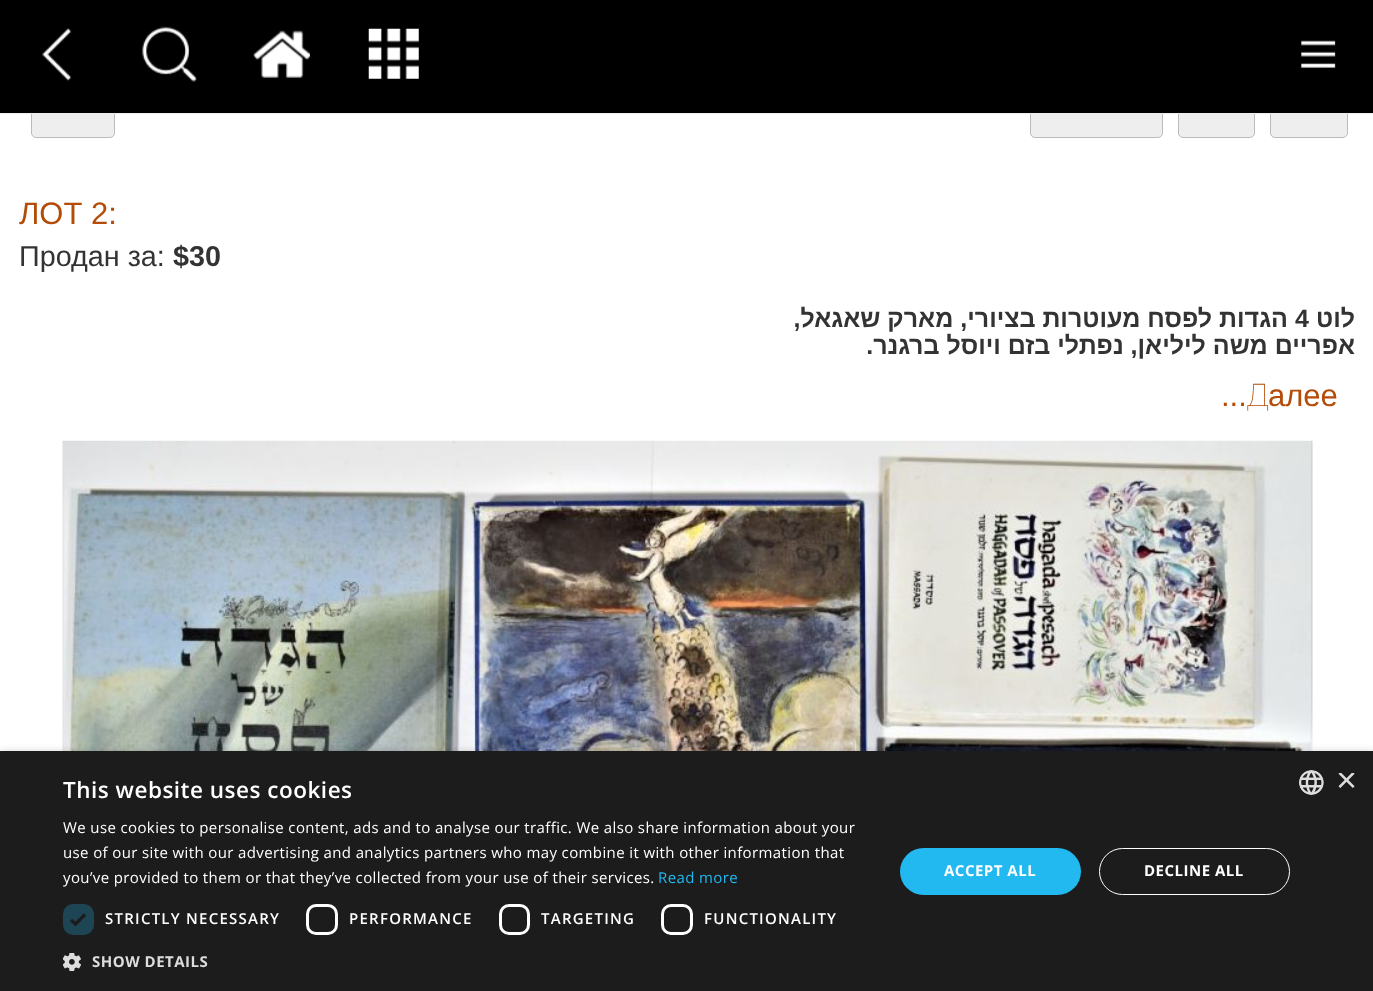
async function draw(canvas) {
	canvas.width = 1373;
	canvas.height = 991;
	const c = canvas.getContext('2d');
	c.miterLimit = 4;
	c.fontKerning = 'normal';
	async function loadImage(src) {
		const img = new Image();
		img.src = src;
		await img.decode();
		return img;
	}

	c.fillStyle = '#fff';
	c.fillRect(0, 0, 1373, 991);
	c.fillStyle = '#eee';
	c.beginPath();
	c.roundRect(31.5, 54.5, 83, 83, 4.5);
	c.fill();
	c.strokeStyle = '#bbb';
	c.stroke();
	c.beginPath();
	c.roundRect(1030.5, 54.5, 132, 83, 4.5);
	c.fill();
	c.stroke();
	c.beginPath();
	c.roundRect(1178.5, 54.5, 76, 83, 4.5);
	c.fill();
	c.stroke();
	c.beginPath();
	c.roundRect(1270.5, 54.5, 77, 83, 4.5);
	c.fill();
	c.stroke();
	c.fillStyle = '#000';
	c.fillRect(0, 0, 1373, 113);
	c.fillStyle = '#eee';
	c.fillRect(0, 113, 1373, 1);
	c.drawImage(await loadImage('img1.png'), 42, 28, 30, 53);
	c.drawImage(await loadImage('img2.png'), 142, 26, 55, 56);
	c.drawImage(await loadImage('img3.png'), 253, 30, 57, 48);
	c.drawImage(await loadImage('img4.png'), 368, 28, 51, 51);
	c.drawImage(await loadImage('img5.png'), 1301, 40, 35, 28);
	c.font = '31px Liberation Sans';
	c.fillStyle = '#b44b07';
	c.fillText('ЛОТ 2:', 19, 224);
	c.font = '28.75px Liberation Sans';
	c.fillStyle = '#333';
	c.fillText('Продан за:', 19, 266);
	c.font = 'bold 28.75px Liberation Sans';
	c.fillText('$30', 173, 266);
	c.direction = 'rtl';
	c.font = 'bold 25px Liberation Sans';
	c.fillText('הגדות לפסח מעוטרות בציורי, מארק שאגאל,', 1288, 327);
	c.direction = 'ltr';
	c.fillText('4', 1295, 327);
	c.direction = 'rtl';
	c.fillText('לוט', 1355, 327);
	c.fillText('אפריים משה ליליאן, נפתלי בזם ויוסל ברגנר.', 1355, 354);
	c.direction = 'ltr';
	c.font = '31px Liberation Sans';
	c.fillStyle = '#b44b07';
	c.fillText('...', 1221, 406);
	c.font = '100 31px Noto Sans';
	c.fillText('Д', 1247, 406);
	c.font = '31px Liberation Sans';
	c.fillText('алее', 1268, 406);
	c.drawImage(await loadImage('img6.png'), 62, 440, 1251, 311);
	c.fillStyle = '#00000059';
	c.filter = 'blur(5px)';
	c.beginPath();
	c.rect(1, 754, 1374, 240);
	c.fill();
	c.filter = 'none';
	c.fillStyle = '#1c1c1c';
	c.fillRect(0, 751, 1373, 240);
	c.letterSpacing = '0.5px';
	c.font = '600 22.5px Open Sans';
	c.fillStyle = '#fff';
	c.fillText('This website uses cookies', 63, 798);
	c.letterSpacing = '0.38px';
	c.font = '15px Open Sans';
	for (const [text, x, y] of [
		['We use cookies to personalise content, ads and to analyse our traffic. We also share information about your', 63, 833],
		['use of our site with our advertising and analytics partners who may combine it with other information that', 63, 858],
		['you’ve provided to them or that they’ve collected from your use of their services.', 63, 883],
	]) {
		c.fillText(text, x, y);
	}
	c.fillStyle = '#22b8f0';
	c.fillText('Read more', 658, 883);
	c.fillStyle = '#1e4553';
	c.beginPath();
	c.roundRect(63, 904, 31, 31, 10);
	c.fill();
	c.beginPath();
	c.moveTo(71, 920);
	c.lineTo(75.5, 924);
	c.lineTo(85, 914.5);
	c.strokeStyle = '#1c1c1c';
	c.lineWidth = 3.3;
	c.stroke();
	c.letterSpacing = '1.25px';
	c.font = '600 15px Open Sans';
	c.fillStyle = '#fff';
	c.fillText('STRICTLY NECESSARY', 105, 924);
	c.beginPath();
	c.roundRect(307.5, 905.5, 29, 28, 8.5);
	c.strokeStyle = '#fff';
	c.lineWidth = 3;
	c.stroke();
	c.fillText('PERFORMANCE', 349, 924);
	c.beginPath();
	c.roundRect(500.5, 905.5, 28, 28, 8.5);
	c.stroke();
	c.fillText('TARGETING', 541, 924);
	c.beginPath();
	c.roundRect(662.5, 905.5, 29, 28, 8.5);
	c.stroke();
	c.fillText('FUNCTIONALITY', 704, 924);
	c.drawImage(await loadImage('img7.png'), 63, 953, 18, 18);
	c.letterSpacing = '0.5px';
	c.font = 'bold 15px Open Sans';
	c.fillStyle = '#ddd';
	c.fillText('SHOW DETAILS', 92, 967);
	c.fillStyle = '#22b8f0';
	c.beginPath();
	c.roundRect(900, 848, 181, 47, 23.5);
	c.fill();
	c.fillStyle = '#fff';
	c.fillText('ACCEPT ALL', 944, 876);
	c.beginPath();
	c.roundRect(1099.5, 848.5, 190, 46, 23);
	c.lineWidth = 1;
	c.stroke();
	c.fillText('DECLINE ALL', 1144, 876);
	c.drawImage(await loadImage('img8.png'), 1299, 770, 25, 25);
	c.save();
	c.beginPath();
	c.rect(1336, 773, 19, 18);
	c.clip();
	c.letterSpacing = '0px';
	c.font = '36px Liberation Sans';
	c.fillStyle = '#ddd';
	c.fillText('×', 1336, 792);
	c.restore();
}

draw(document.querySelector('canvas'));
